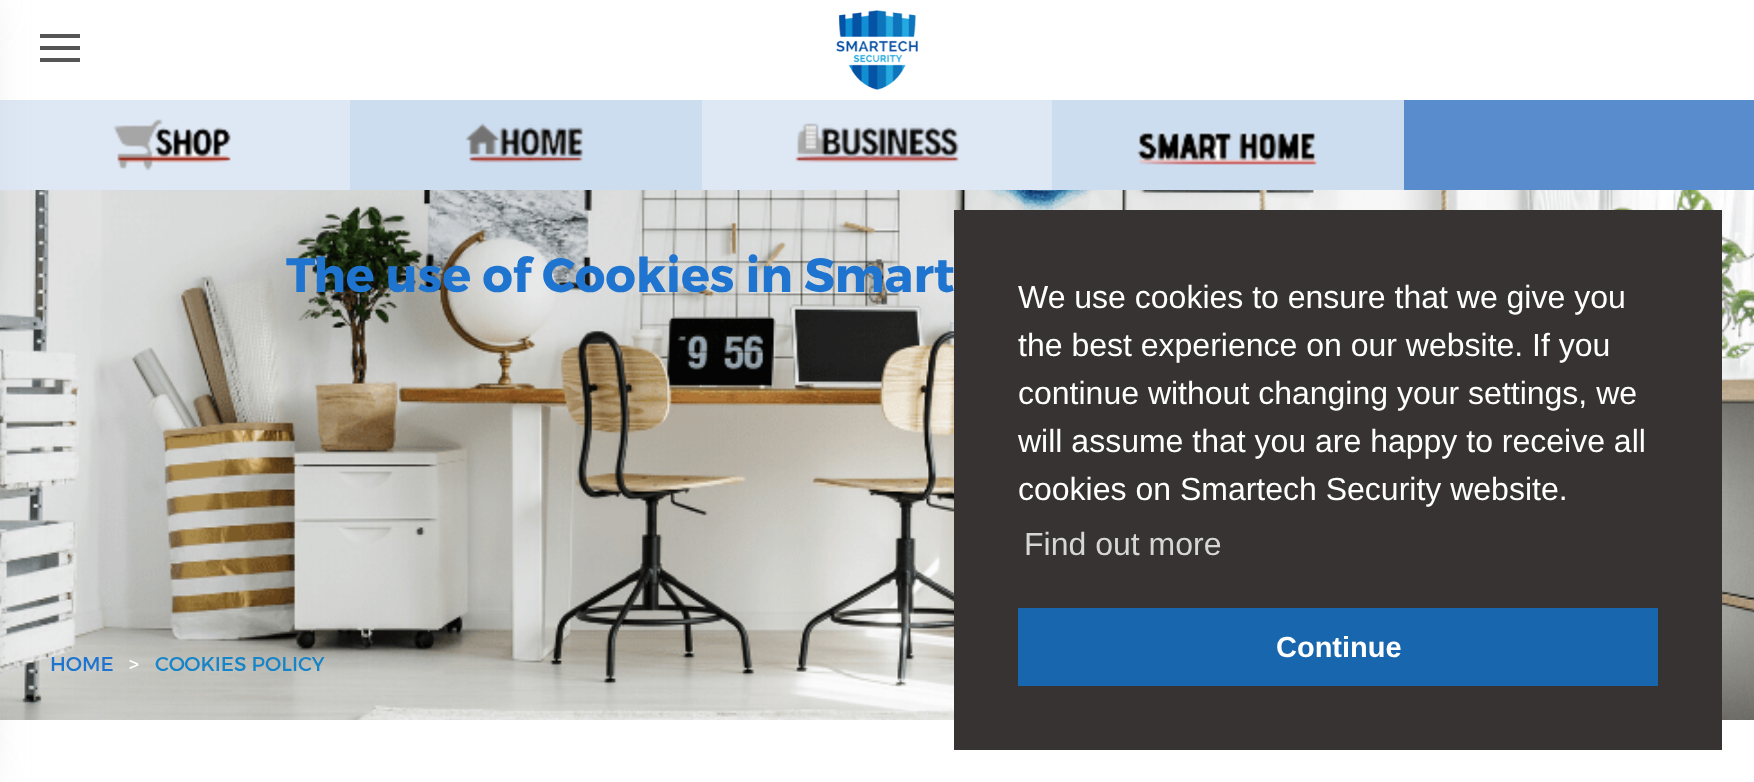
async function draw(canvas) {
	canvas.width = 1754;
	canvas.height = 782;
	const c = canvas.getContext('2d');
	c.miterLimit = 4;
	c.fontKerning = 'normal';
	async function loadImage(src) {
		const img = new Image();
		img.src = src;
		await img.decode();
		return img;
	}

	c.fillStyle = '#fff';
	c.fillRect(0, 0, 1754, 782);
	for (const [x, y, w, h, color] of [
		[40, 34, 40, 4, '#555'],
		[40, 46, 40, 4, '#555'],
		[40, 58, 40, 4, '#555'],
		[0, 100, 350, 90, '#dee8f5'],
	]) {
		c.fillStyle = color;
		c.fillRect(x, y, w, h);
	}
	c.drawImage(await loadImage('img6.png'), 0, 190, 1754, 530);
	c.fillStyle = '#adadad';
	c.filter = 'blur(30px)';
	c.beginPath();
	c.rect(-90, 0, 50, 782);
	c.fill();
	c.filter = 'none';
	c.drawImage(await loadImage('img1.png'), 836, 10, 82, 80);
	c.fillStyle = '#588ccd';
	c.fillRect(1404, 100, 350, 90);
	c.drawImage(await loadImage('img2.png'), 113, 119, 118, 52);
	c.fillStyle = '#cdddf0';
	c.fillRect(350, 100, 352, 90);
	c.drawImage(await loadImage('img3.png'), 465, 123, 120, 40);
	c.fillStyle = '#dee8f5';
	c.fillRect(702, 100, 350, 90);
	c.drawImage(await loadImage('img4.png'), 795, 123, 164, 40);
	c.fillStyle = '#cdddf0';
	c.fillRect(1052, 100, 352, 90);
	c.drawImage(await loadImage('img5.png'), 1137, 131, 180, 34);
	c.font = 'bold 48px Montserrat';
	c.fillStyle = '#1e74cf';
	c.fillText('The use of Cookies in Smart', 286, 292);
	c.font = '20px Montserrat';
	c.fillText('HOME', 50, 671);
	c.fillStyle = '#fff';
	c.fillText('>', 129, 671);
	c.fillStyle = '#1784c7';
	c.fillText('COOKIES POLICY', 155, 671);
	c.fillStyle = '#383333';
	c.fillRect(954, 210, 768, 540);
	c.font = '32px Liberation Sans';
	c.fillStyle = '#fff';
	for (const [text, x, y] of [
		['We use cookies to ensure that we give you', 1018, 308],
		['the best experience on our website. If you', 1018, 356],
		['continue without changing your settings, we', 1018, 404],
		['will assume that you are happy to receive all', 1018, 452],
		['cookies on Smartech Security website.', 1018, 500],
	]) {
		c.fillText(text, x, y);
	}
	c.fillStyle = '#d7d6d6';
	c.fillText('Find out more', 1024, 555);
	c.fillStyle = '#1866ad';
	c.fillRect(1018, 608, 640, 78);
	c.font = 'bold 29px Liberation Sans';
	c.fillStyle = '#fff';
	c.fillText('Continue', 1276, 657);
}

draw(document.querySelector('canvas'));
